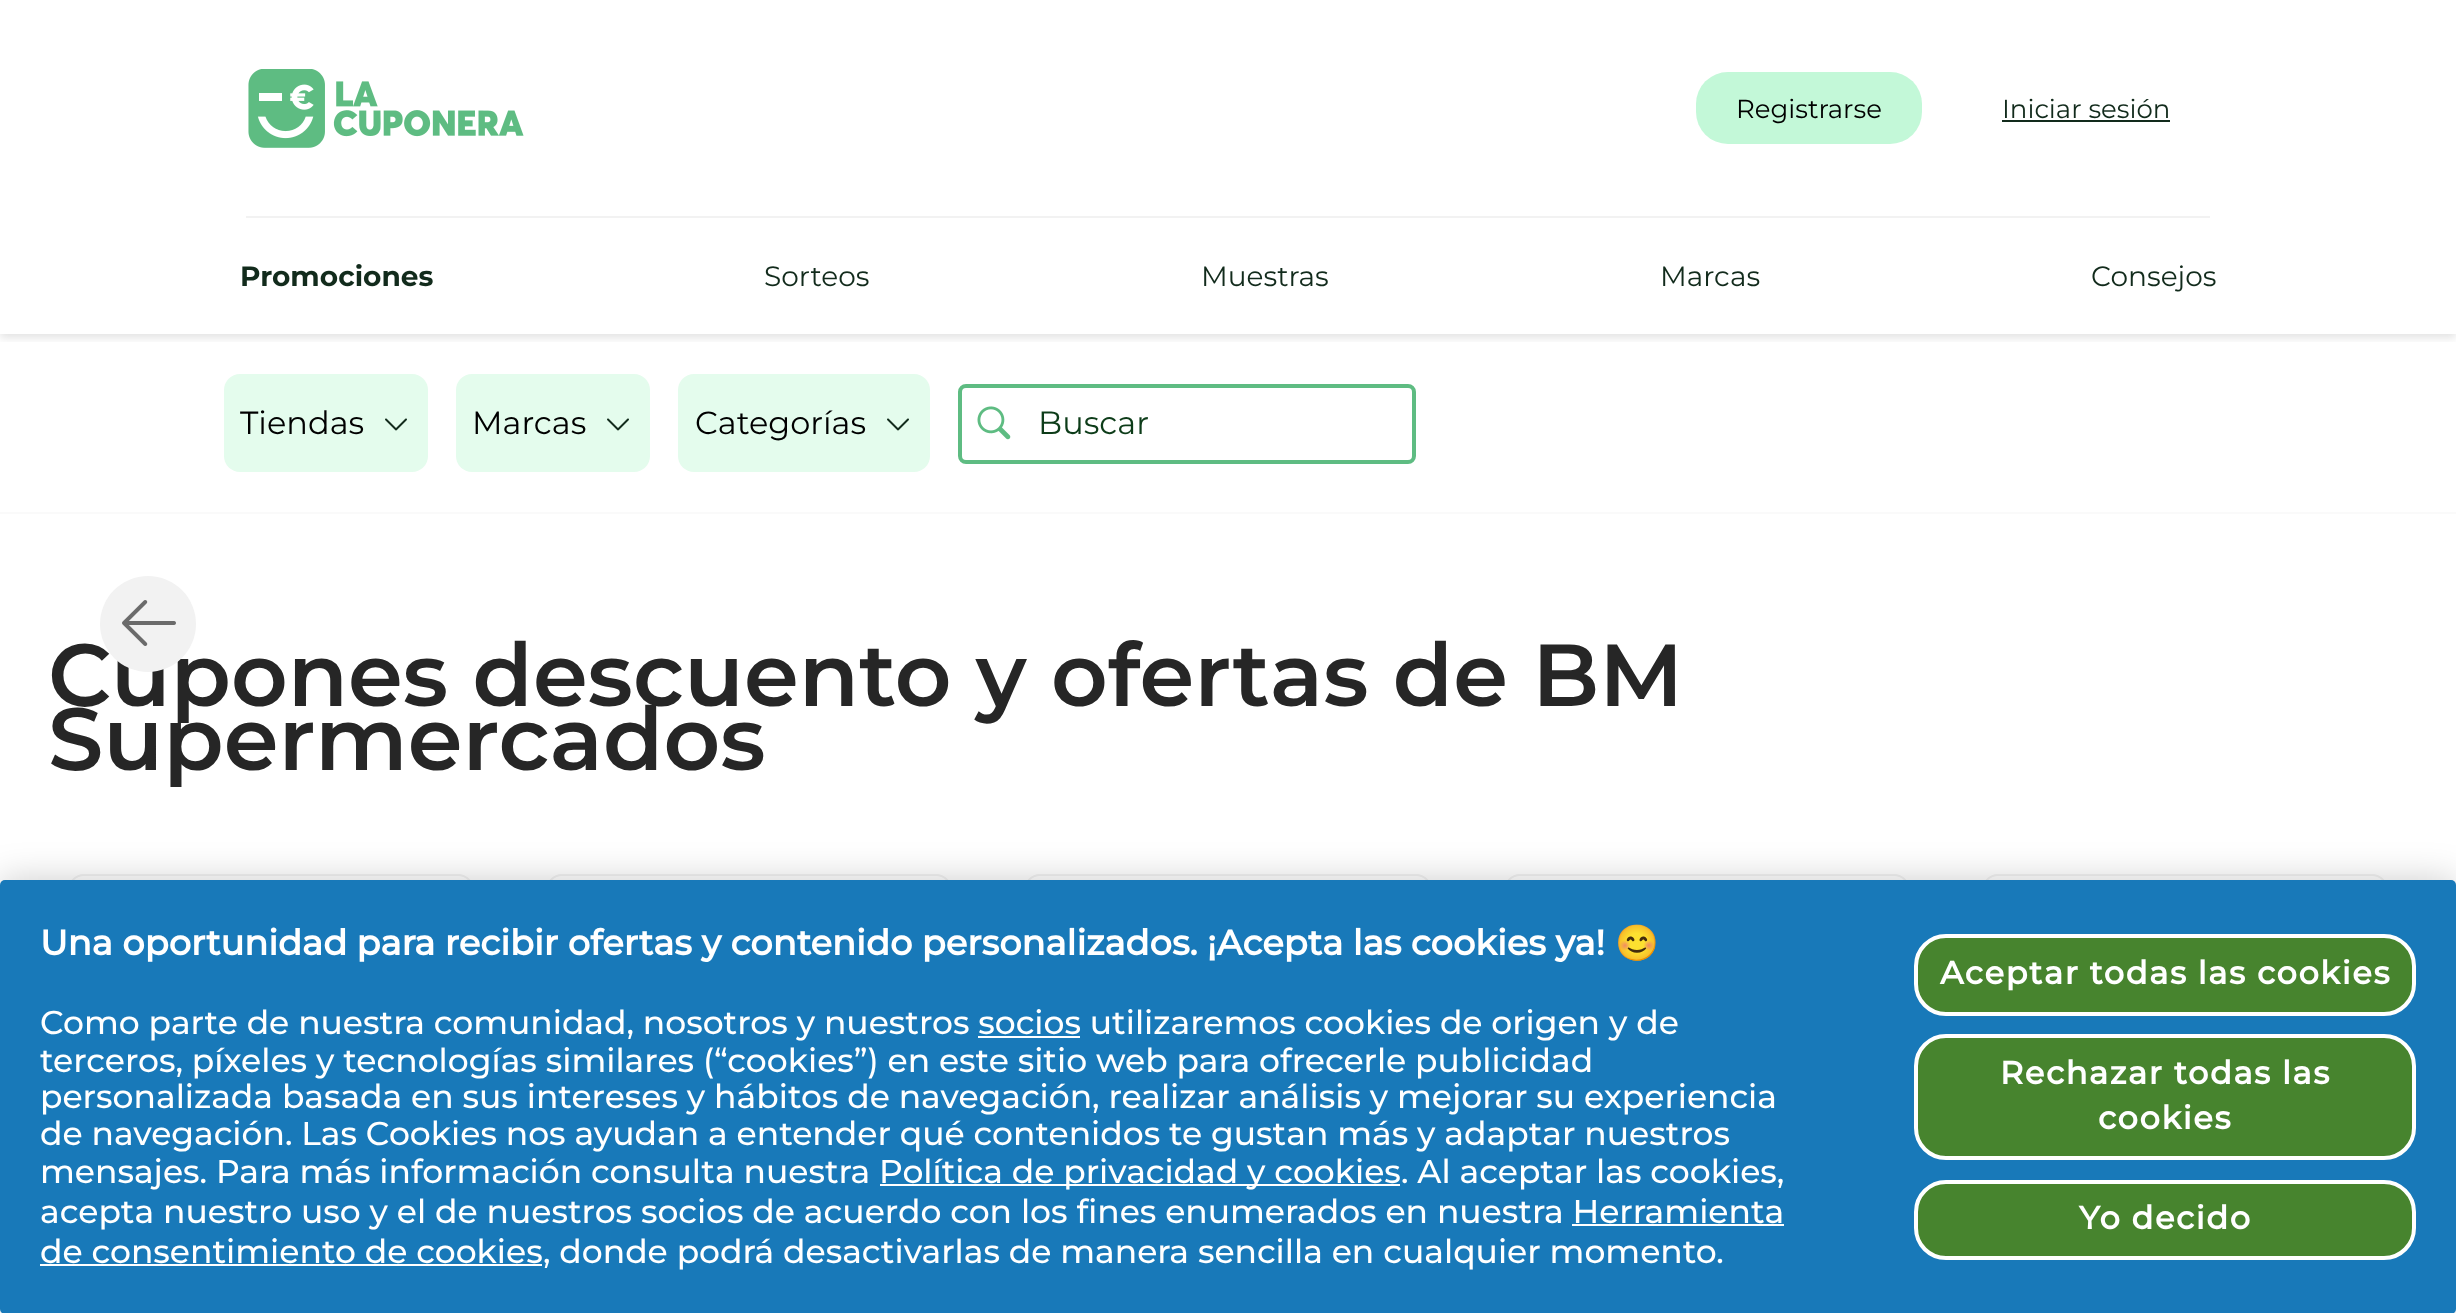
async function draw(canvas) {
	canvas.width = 2456;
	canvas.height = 1313;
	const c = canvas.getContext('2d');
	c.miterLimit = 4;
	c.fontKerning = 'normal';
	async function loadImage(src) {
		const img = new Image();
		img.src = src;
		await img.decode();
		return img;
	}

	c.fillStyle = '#fff';
	c.fillRect(0, 0, 2456, 1313);
	c.fillStyle = '#fafafa';
	c.fillRect(0, 512, 2456, 2);
	c.save();
	c.beginPath();
	c.rect(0, 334, 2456, 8);
	c.clip();
	c.fillStyle = '#0000001c';
	c.filter = 'blur(4px)';
	c.beginPath();
	c.rect(0, 4, 2456, 334);
	c.fill();
	c.filter = 'none';
	c.restore();
	c.fillStyle = '#f2f2f2';
	c.fillRect(246, 216, 1964, 2);
	c.drawImage(await loadImage('img1.png'), 248, 69, 276, 79);
	c.fillStyle = '#c3f8d8';
	c.beginPath();
	c.roundRect(1696, 72, 226, 72, 32);
	c.fill();
	c.font = '26px Montserrat';
	c.fillStyle = '#000';
	c.fillText('Registrarse', 1736, 118);
	c.fillStyle = '#122b1c';
	c.fillText('Iniciar sesión', 2002, 118);
	c.fillRect(2002, 120, 168, 2);
	c.font = 'bold 28px Montserrat';
	c.fillText('Promociones', 240, 286);
	c.font = '28px Montserrat';
	for (const [text, x, y] of [
		['Sorteos', 764, 286],
		['Muestras', 1201, 286],
		['Marcas', 1660, 286],
		['Consejos', 2091, 286],
	]) {
		c.fillText(text, x, y);
	}
	c.font = '600 88px Montserrat';
	c.fillStyle = '#262626';
	c.fillText('Cupones descuento y ofertas de BM', 48, 706);
	c.fillStyle = '#f2f2f2';
	c.beginPath();
	c.arc(148, 624, 48, 0, 2 * Math.PI);
	c.fill();
	c.drawImage(await loadImage('img2.png'), 122, 600, 54, 46);
	c.fillStyle = '#e4fced';
	c.beginPath();
	c.roundRect(224, 374, 204, 98, 16);
	c.fill();
	c.font = '32px Montserrat';
	c.fillStyle = '#000';
	c.fillText('Tiendas', 240, 434);
	c.drawImage(await loadImage('img3.png'), 385, 418, 22, 13);
	c.fillStyle = '#e4fced';
	c.beginPath();
	c.roundRect(456, 374, 194, 98, 16);
	c.fill();
	c.fillStyle = '#000';
	c.fillText('Marcas', 472, 434);
	c.drawImage(await loadImage('img3.png'), 607, 418, 22, 13);
	c.fillStyle = '#e4fced';
	c.beginPath();
	c.roundRect(678, 374, 252, 98, 16);
	c.fill();
	c.fillStyle = '#000';
	c.fillText('Categorías', 695, 434);
	c.drawImage(await loadImage('img3.png'), 887, 418, 22, 13);
	c.beginPath();
	c.roundRect(960, 386, 454, 76, 6);
	c.strokeStyle = '#5ebc82';
	c.lineWidth = 4;
	c.stroke();
	c.drawImage(await loadImage('img4.png'), 977, 406, 34, 34);
	c.fillStyle = '#0d3c19';
	c.fillText('Buscar', 1038, 434);
	c.font = '600 88px Montserrat';
	c.fillStyle = '#262626';
	c.fillText('Supermercados', 48, 770);
	c.beginPath();
	c.roundRect(69, 875, 404, 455, 15);
	c.strokeStyle = '#f2f2f2';
	c.lineWidth = 2;
	c.stroke();
	c.beginPath();
	c.roundRect(547, 875, 404, 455, 15);
	c.stroke();
	c.beginPath();
	c.roundRect(1025, 875, 406, 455, 15);
	c.stroke();
	c.beginPath();
	c.roundRect(1505, 875, 404, 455, 15);
	c.stroke();
	c.beginPath();
	c.roundRect(1983, 875, 404, 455, 15);
	c.stroke();
	c.fillStyle = '#00000033';
	c.filter = 'blur(18px)';
	c.beginPath();
	c.roundRect(0, 880, 2456, 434, 5);
	c.fill();
	c.filter = 'none';
	c.fillStyle = '#1879b9';
	c.beginPath();
	c.roundRect(0, 880, 2456, 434, 5);
	c.fill();
	c.font = 'bold 35.2px "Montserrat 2"';
	c.fillStyle = '#fff';
	c.fillText('Una oportunidad para recibir ofertas y contenido personalizados. ¡Acepta las cookies ya!', 40, 955);
	c.font = 'bold 35.2px Noto Color Emoji';
	c.fillText('😊', 1615, 955);
	c.font = '500 32.95px Montserrat';
	c.fillText('Como parte de nuestra comunidad, nosotros y nuestros socios utilizaremos cookies de origen y de', 40, 1034);
	c.fillRect(978, 1036, 102, 2);
	for (const [text, x, y] of [
		['terceros, píxeles y tecnologías similares (“cookies”) en este sitio web para ofrecerle publicidad', 40, 1072],
		['personalizada basada en sus intereses y hábitos de navegación, realizar análisis y mejorar su experiencia', 40, 1108],
		['de navegación. Las Cookies nos ayudan a entender qué contenidos te gustan más y adaptar nuestros', 40, 1145],
		['mensajes. Para más información consulta nuestra', 40, 1183],
	]) {
		c.fillText(text, x, y);
	}
	c.fillRect(880, 1184, 520, 2);
	for (const [text, x, y] of [
		['Política de privacidad y cookies', 879, 1183],
		['. Al aceptar las cookies,', 1401, 1183],
		['acepta nuestro uso y el de nuestros socios de acuerdo con los fines enumerados en nuestra Herramienta', 40, 1223],
		['de consentimiento de cookies', 40, 1263],
	]) {
		c.fillText(text, x, y);
	}
	c.fillRect(1572, 1224, 212, 2);
	c.fillRect(40, 1264, 502, 2);
	c.fillText(', donde podrá desactivarlas de manera sencilla en cualquier momento.', 543, 1263);
	c.fillStyle = '#47842e';
	c.beginPath();
	c.roundRect(1916, 936, 498, 78, 30);
	c.fill();
	c.strokeStyle = '#fff';
	c.lineWidth = 4;
	c.stroke();
	c.letterSpacing = '1.6px';
	c.font = 'bold 32px "Montserrat 2"';
	c.fillStyle = '#fff';
	c.fillText('Aceptar todas las cookies', 1940, 984);
	c.fillStyle = '#47842e';
	c.beginPath();
	c.roundRect(1916, 1036, 498, 122, 30);
	c.fill();
	c.stroke();
	c.fillStyle = '#fff';
	c.fillText('Rechazar todas las', 2000, 1084);
	c.fillText('cookies', 2098, 1129);
	c.fillStyle = '#47842e';
	c.beginPath();
	c.roundRect(1916, 1182, 498, 76, 30);
	c.fill();
	c.stroke();
	c.fillStyle = '#fff';
	c.fillText('Yo decido', 2079, 1229);
}

draw(document.querySelector('canvas'));
